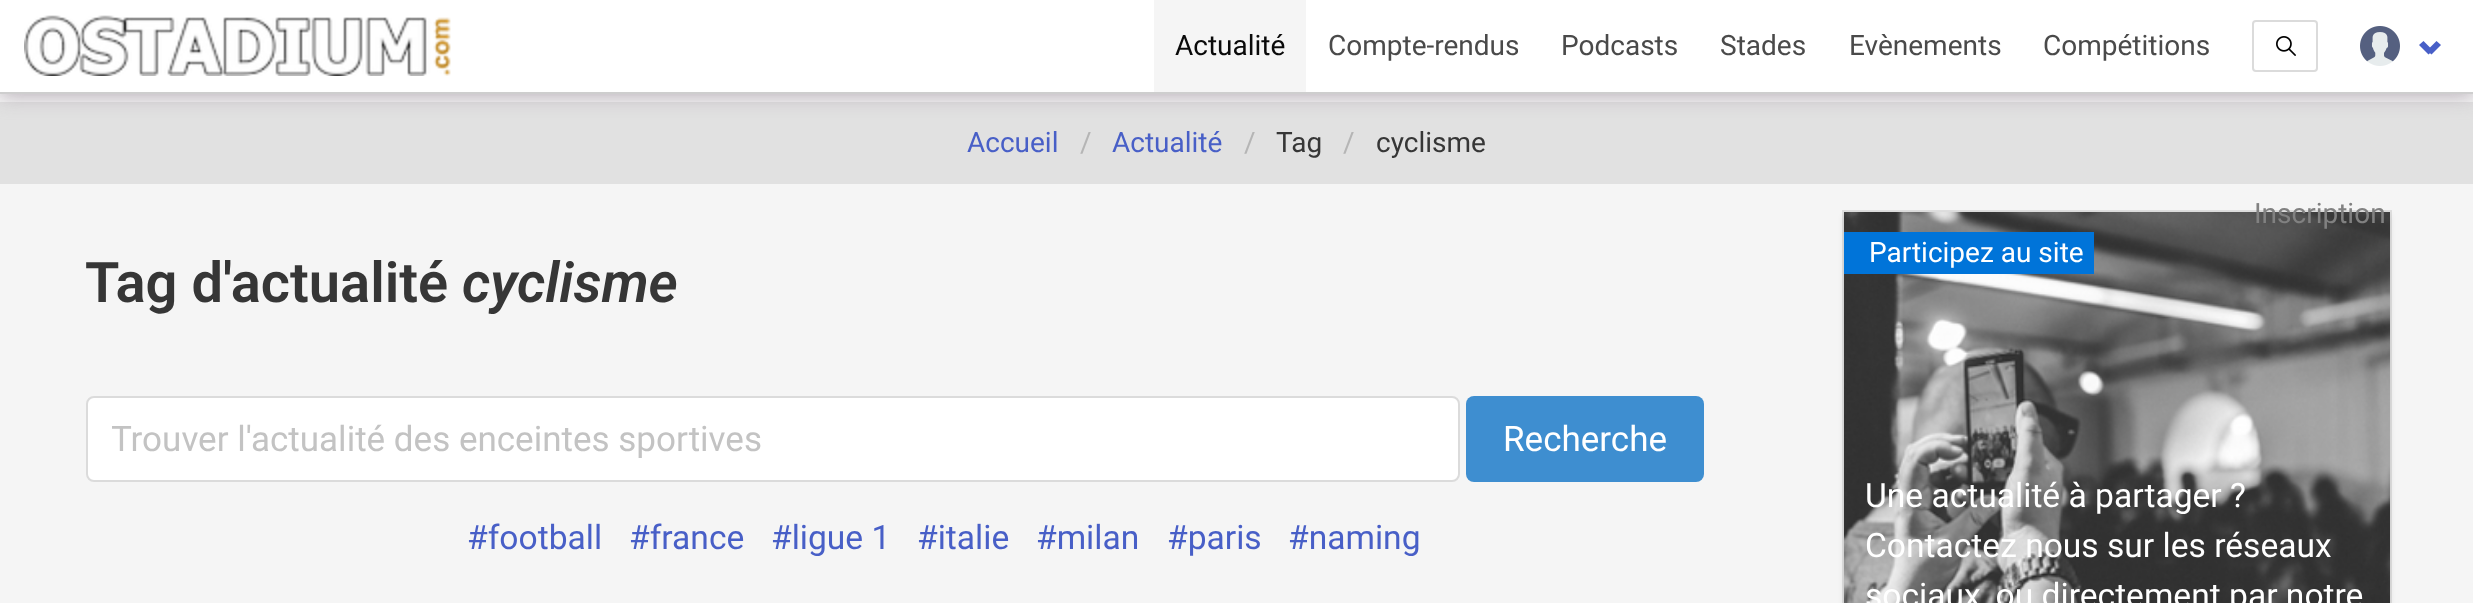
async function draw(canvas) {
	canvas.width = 2473;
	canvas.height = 603;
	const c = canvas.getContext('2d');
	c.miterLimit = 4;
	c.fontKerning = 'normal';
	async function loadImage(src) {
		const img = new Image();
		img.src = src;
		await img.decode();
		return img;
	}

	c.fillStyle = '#f5f5f5';
	c.fillRect(0, 0, 2473, 603);
	c.fillStyle = '#e1e1e1';
	c.fillRect(0, 102, 2473, 82);
	c.fillStyle = '#b5acb5';
	c.filter = 'blur(10px)';
	c.beginPath();
	c.rect(0, 2, 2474, 94);
	c.fill();
	c.filter = 'none';
	c.fillStyle = '#fff';
	c.fillRect(0, 0, 2473, 92);
	c.fillStyle = '#cecece';
	c.fillRect(0, 92, 2473, 2);
	c.drawImage(await loadImage('img1.png'), 24, 15, 427, 61);
	c.fillStyle = '#f5f5f5';
	c.fillRect(1154, 0, 152, 92);
	c.font = '28px Roboto';
	c.fillStyle = '#0a0a0a';
	c.fillText('Actualité', 1175, 55);
	c.fillStyle = '#4a4a4a';
	for (const [text, x, y] of [
		['Compte-rendus', 1328, 55],
		['Podcasts', 1561, 55],
		['Stades', 1720, 55],
		['Evènements', 1849, 55],
		['Compétitions', 2043, 55],
	]) {
		c.fillText(text, x, y);
	}
	c.beginPath();
	c.roundRect(2253, 21, 64, 50, 3);
	c.strokeStyle = '#dbdbdb';
	c.lineWidth = 2;
	c.stroke();
	c.drawImage(await loadImage('img2.png'), 2276, 36, 20, 20);
	c.drawImage(await loadImage('img3.png'), 2360, 26, 40, 40);
	c.fillStyle = '#485fc7';
	c.beginPath();
	c.moveTo(2427, 50.5);
	c.lineTo(2436.5, 41);
	c.lineTo(2441, 45);
	c.lineTo(2431.5, 54.5);
	c.closePath();
	c.fill();
	c.beginPath();
	c.moveTo(2419, 45);
	c.lineTo(2423.5, 41);
	c.lineTo(2433, 50.5);
	c.lineTo(2428.5, 54.5);
	c.closePath();
	c.fill();
	c.strokeStyle = '#dedede';
	c.strokeRect(1843, 211, 548, 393);
	c.fillStyle = '#0a0a0a1a';
	c.filter = 'blur(3px)';
	c.beginPath();
	c.rect(1844, 216, 546, 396);
	c.fill();
	c.filter = 'none';
	c.drawImage(await loadImage('img4.png'), 1844, 212, 546, 391);
	c.fillStyle = '#818181';
	c.fillText('Inscription', 2254, 223);
	c.fillStyle = '#485fc7';
	c.fillText('Accueil', 967, 152);
	c.fillStyle = '#b5b5b5';
	c.fillText('/', 1080, 152);
	c.fillStyle = '#485fc7';
	c.fillText('Actualité', 1112, 152);
	c.fillStyle = '#b5b5b5';
	c.fillText('/', 1244, 152);
	c.fillStyle = '#363636';
	c.fillText('Tag', 1276, 152);
	c.fillStyle = '#b5b5b5';
	c.fillText('/', 1343, 152);
	c.fillStyle = '#363636';
	c.fillText('cyclisme', 1376, 152);
	c.font = '600 56px Roboto';
	c.fillText('Tag d\'actualité', 85, 302);
	c.font = 'italic 600 56px Roboto';
	c.fillText('cyclisme', 462, 302);
	c.fillStyle = '#fff';
	c.beginPath();
	c.roundRect(87, 397, 1372, 84, 7);
	c.fill();
	c.strokeStyle = '#dbdbdb';
	c.stroke();
	c.save();
	c.beginPath();
	c.rect(112, 418, 1320, 40);
	c.clip();
	c.font = '35px Roboto';
	c.fillStyle = '#c3c3c3';
	c.fillText('Trouver l\'actualité des enceintes sportives', 111, 451);
	c.restore();
	c.fillStyle = '#3e8ed0';
	c.beginPath();
	c.roundRect(1466, 396, 238, 86, 8);
	c.fill();
	c.font = '35px Roboto';
	c.fillStyle = '#fff';
	c.fillText('Recherche', 1503, 451);
	c.font = '33.6px Roboto';
	c.fillStyle = '#485fc7';
	for (const [text, x, y] of [
		['#football', 467, 549],
		['#france', 629, 549],
		['#ligue 1', 771, 549],
		['#italie', 917, 549],
		['#milan', 1036, 549],
		['#paris', 1167, 549],
		['#naming', 1288, 549],
	]) {
		c.fillText(text, x, y);
	}
	c.fillStyle = '#0074d9';
	c.fillRect(1844, 232, 250, 42);
	c.font = '28px Roboto';
	c.fillStyle = '#fff';
	c.fillText('Participez au site', 1869, 262);
	c.font = '33.6px Roboto';
	for (const [text, x, y] of [
		['Une actualité à partager ?', 1865, 507],
		['Contactez nous sur les réseaux', 1865, 557],
		['sociaux, ou directement par notre', 1865, 607],
	]) {
		c.fillText(text, x, y);
	}
}

draw(document.querySelector('canvas'));
